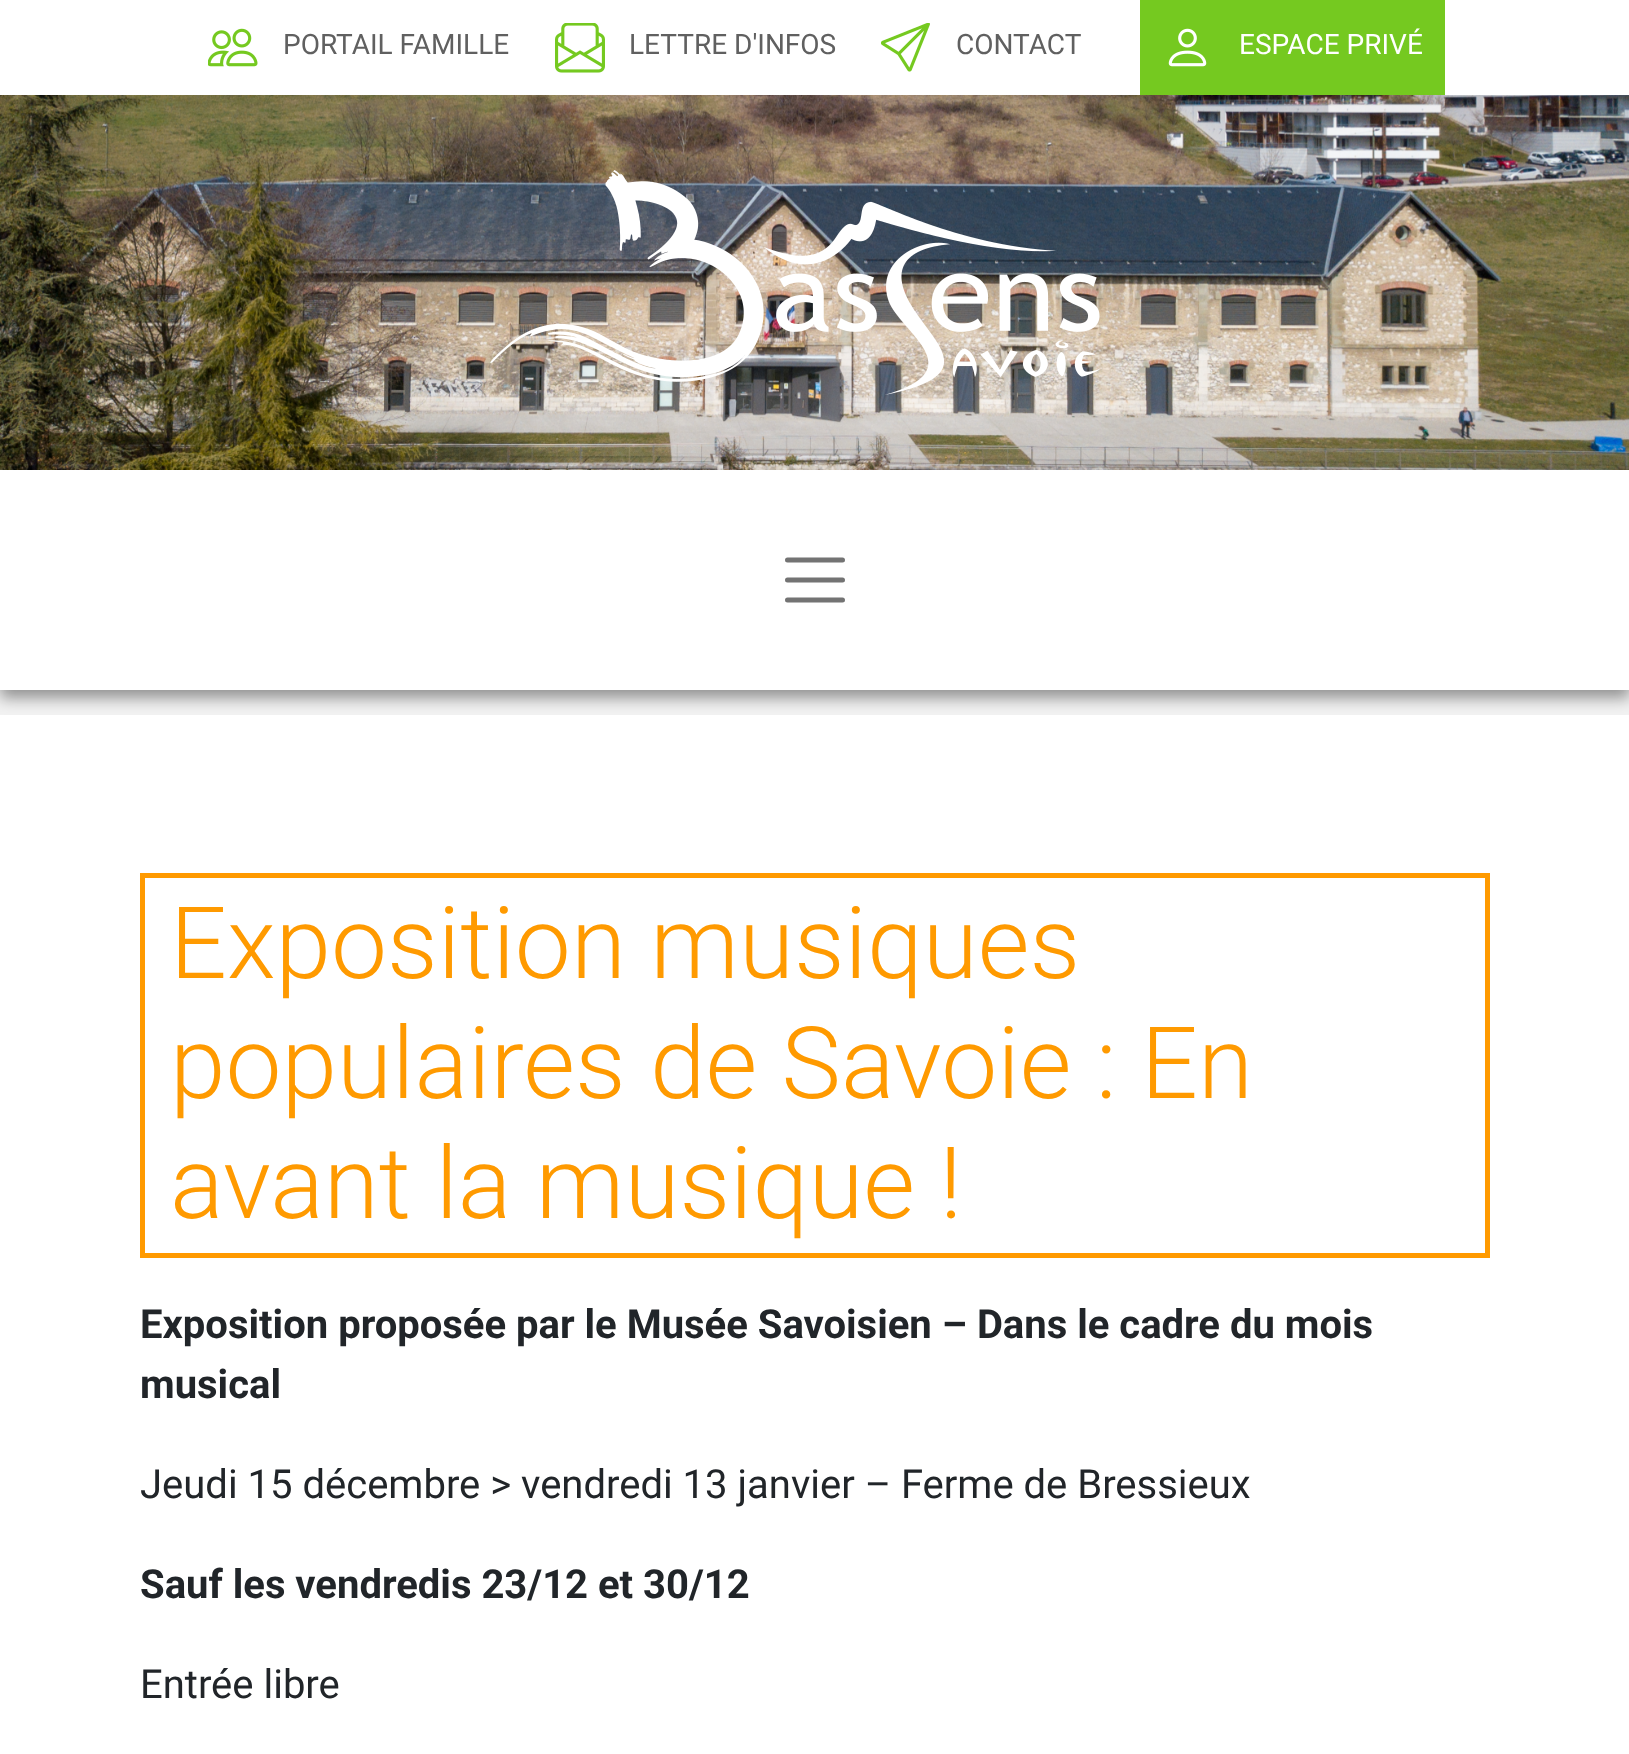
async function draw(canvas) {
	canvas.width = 1629;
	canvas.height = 1754;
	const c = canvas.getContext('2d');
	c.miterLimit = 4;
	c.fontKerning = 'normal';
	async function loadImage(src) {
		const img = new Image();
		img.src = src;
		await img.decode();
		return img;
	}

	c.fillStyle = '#fff';
	c.fillRect(0, 0, 1629, 1754);
	c.drawImage(await loadImage('img1.png'), 208, 28, 50, 39);
	c.font = '28px Roboto';
	c.fillStyle = '#606060';
	c.fillText('PORTAIL FAMILLE', 283, 54);
	c.drawImage(await loadImage('img2.png'), 555, 23, 50, 50);
	c.fillText('LETTRE D\'INFOS', 629, 54);
	c.drawImage(await loadImage('img3.png'), 880, 23, 50, 49);
	c.fillText('CONTACT', 956, 54);
	c.fillStyle = '#75c920';
	c.fillRect(1140, 0, 305, 95);
	c.drawImage(await loadImage('img4.png'), 1168, 28, 39, 39);
	c.fillStyle = '#fff';
	c.fillText('ESPACE PRIVÉ', 1239, 54);
	c.drawImage(await loadImage('img5.png'), 0, 95, 1629, 375);
	c.drawImage(await loadImage('img6.png'), 490, 170, 610, 225);
	c.fillStyle = '#f2f2f2';
	c.fillRect(0, 690, 1629, 25);
	c.save();
	c.beginPath();
	c.moveTo(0, 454);
	c.lineTo(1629, 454);
	c.lineTo(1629, 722);
	c.lineTo(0, 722);
	c.closePath();
	c.moveTo(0, 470);
	c.lineTo(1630, 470);
	c.lineTo(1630, 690);
	c.lineTo(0, 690);
	c.closePath();
	c.clip('evenodd');
	c.fillStyle = '#00000066';
	c.filter = 'blur(7.5px)';
	c.beginPath();
	c.rect(0, 478, 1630, 220);
	c.fill();
	c.filter = 'none';
	c.restore();
	c.beginPath();
	c.moveTo(787.5, 560);
	c.lineTo(842.5, 560);
	c.moveTo(787.5, 580);
	c.lineTo(842.5, 580);
	c.moveTo(787.5, 600);
	c.lineTo(842.5, 600);
	c.strokeStyle = '#737373';
	c.lineWidth = 5;
	c.lineCap = 'round';
	c.stroke();
	c.strokeStyle = '#ff9a00';
	c.strokeRect(142.5, 875.5, 1345, 380);
	c.font = '300 100px Roboto';
	c.fillStyle = '#ff9a00';
	for (const [text, x, y] of [
		['Exposition musiques', 170, 978],
		['populaires de Savoie : En', 170, 1098],
		['avant la musique !', 170, 1218],
	]) {
		c.fillText(text, x, y);
	}
	c.font = 'bold 40px Roboto';
	c.fillStyle = '#212529';
	c.fillText('Exposition proposée par le Musée Savoisien – Dans le cadre du mois', 140, 1338);
	c.fillText('musical', 140, 1398);
	c.font = '40px Roboto';
	c.fillText('Jeudi 15 décembre > vendredi 13 janvier – Ferme de Bressieux', 140, 1498);
	c.font = 'bold 40px Roboto';
	c.fillText('Sauf les vendredis 23/12 et 30/12', 140, 1598);
	c.font = '40px Roboto';
	c.fillText('Entrée libre', 140, 1698);
}

draw(document.querySelector('canvas'));
